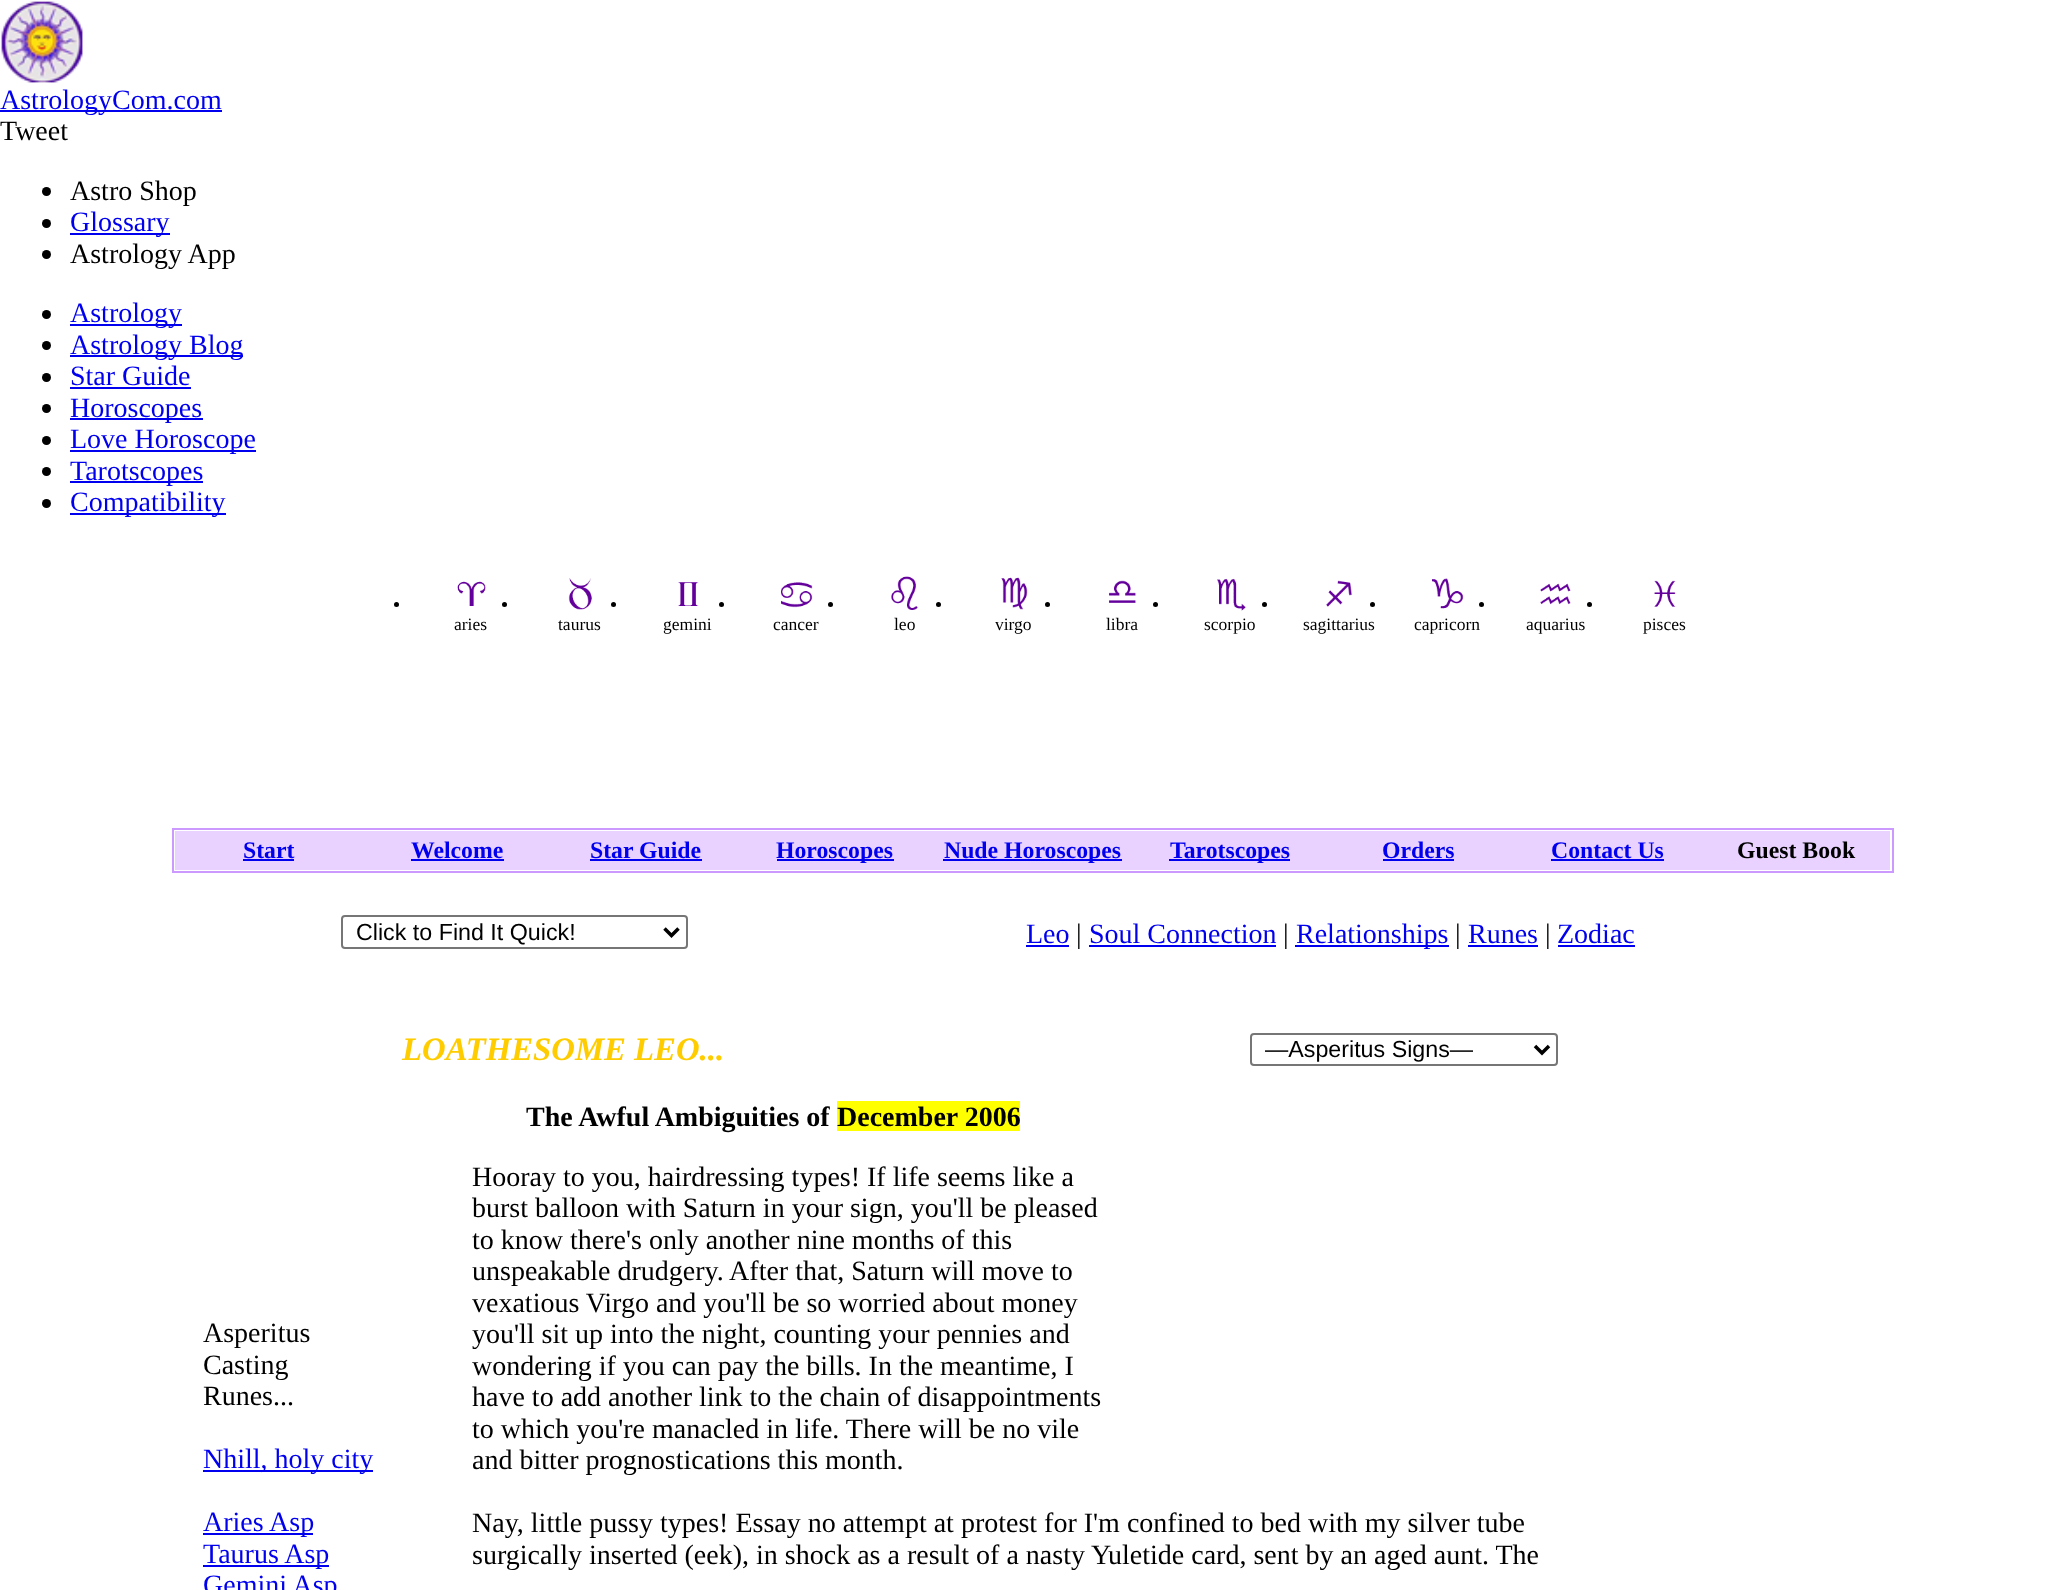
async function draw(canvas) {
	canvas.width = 2065;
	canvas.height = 1590;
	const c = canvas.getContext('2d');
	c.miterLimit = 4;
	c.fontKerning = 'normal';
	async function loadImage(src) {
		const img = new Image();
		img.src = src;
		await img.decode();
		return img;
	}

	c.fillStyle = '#fff';
	c.fillRect(0, 0, 2065, 1590);
	c.drawImage(await loadImage('img1.png'), 1, 1, 82, 82);
	c.fillStyle = '#00e';
	c.fillRect(0, 110, 222, 2);
	c.font = '28px Liberation Serif';
	c.fillText('AstrologyCom.com', 0, 109);
	c.fillStyle = '#000';
	c.fillText('Tweet', 0, 140);
	c.beginPath();
	c.arc(46.5, 191.5, 4.5, 0, 2 * Math.PI);
	c.fill();
	c.fillText('Astro Shop', 70, 200);
	c.beginPath();
	c.arc(46.5, 223.5, 4.5, 0, 2 * Math.PI);
	c.fill();
	c.fillStyle = '#00e';
	c.fillRect(70, 233, 100, 2);
	c.fillText('Glossary', 70, 231);
	c.fillStyle = '#000';
	c.beginPath();
	c.arc(46.5, 254.5, 4.5, 0, 2 * Math.PI);
	c.fill();
	c.fillText('Astrology App', 70, 263);
	c.beginPath();
	c.arc(46.5, 314.5, 4.5, 0, 2 * Math.PI);
	c.fill();
	c.fillStyle = '#00e';
	c.fillRect(70, 324, 112, 2);
	c.fillText('Astrology', 70, 322);
	c.fillStyle = '#000';
	c.beginPath();
	c.arc(46.5, 345.5, 4.5, 0, 2 * Math.PI);
	c.fill();
	c.fillStyle = '#00e';
	c.fillRect(70, 355, 173, 2);
	c.fillText('Astrology Blog', 70, 354);
	c.fillStyle = '#000';
	c.beginPath();
	c.arc(46.5, 377.5, 4.5, 0, 2 * Math.PI);
	c.fill();
	c.fillStyle = '#00e';
	c.fillText('Star Guide', 70, 385);
	c.fillRect(70, 387, 121, 2);
	c.fillStyle = '#000';
	c.beginPath();
	c.arc(46.5, 408.5, 4.5, 0, 2 * Math.PI);
	c.fill();
	c.fillStyle = '#00e';
	c.fillRect(70, 418, 133, 2);
	c.fillText('Horoscopes', 70, 417);
	c.fillStyle = '#000';
	c.beginPath();
	c.arc(46.5, 440.5, 4.5, 0, 2 * Math.PI);
	c.fill();
	c.fillStyle = '#00e';
	c.fillRect(70, 450, 186, 2);
	c.fillText('Love Horoscope', 70, 448);
	c.fillStyle = '#000';
	c.beginPath();
	c.arc(46.5, 471.5, 4.5, 0, 2 * Math.PI);
	c.fill();
	c.fillStyle = '#00e';
	c.fillRect(70, 481, 133, 2);
	c.fillText('Tarotscopes', 70, 480);
	c.fillStyle = '#000';
	c.beginPath();
	c.arc(46.5, 503.5, 4.5, 0, 2 * Math.PI);
	c.fill();
	c.fillStyle = '#00e';
	c.fillRect(70, 513, 156, 2);
	c.fillText('Compatibility', 70, 511);
	c.fillStyle = '#000';
	c.beginPath();
	c.arc(396.5, 604.5, 2.5, 0, 2 * Math.PI);
	c.fill();
	c.drawImage(await loadImage('img2.png'), 457, 581, 29, 25);
	c.font = '17.5px Liberation Serif';
	c.fillText('aries', 454, 630);
	c.beginPath();
	c.arc(504.5, 604.5, 2.5, 0, 2 * Math.PI);
	c.fill();
	c.drawImage(await loadImage('img3.png'), 568, 578, 24, 32);
	c.fillText('taurus', 558, 630);
	c.beginPath();
	c.arc(613.5, 604.5, 2.5, 0, 2 * Math.PI);
	c.fill();
	c.drawImage(await loadImage('img4.png'), 678, 582, 21, 24);
	c.fillText('gemini', 663, 630);
	c.beginPath();
	c.arc(721.5, 604.5, 2.5, 0, 2 * Math.PI);
	c.fill();
	c.drawImage(await loadImage('img5.png'), 781, 582, 32, 26);
	c.fillText('cancer', 773, 630);
	c.beginPath();
	c.arc(830.5, 604.5, 2.5, 0, 2 * Math.PI);
	c.fill();
	c.drawImage(await loadImage('img6.png'), 891, 576, 27, 34);
	c.fillText('leo', 894, 630);
	c.beginPath();
	c.arc(938.5, 604.5, 2.5, 0, 2 * Math.PI);
	c.fill();
	c.drawImage(await loadImage('img7.png'), 1001, 577, 27, 33);
	c.fillText('virgo', 995, 630);
	c.drawImage(await loadImage('img8.png'), 1109, 580, 27, 23);
	c.beginPath();
	c.arc(1047.5, 604.5, 2.5, 0, 2 * Math.PI);
	c.fill();
	c.fillText('libra', 1106, 630);
	c.beginPath();
	c.arc(1155.5, 604.5, 2.5, 0, 2 * Math.PI);
	c.fill();
	c.drawImage(await loadImage('img9.png'), 1217, 578, 29, 33);
	c.fillText('scorpio', 1204, 630);
	c.beginPath();
	c.arc(1264.5, 604.5, 2.5, 0, 2 * Math.PI);
	c.fill();
	c.drawImage(await loadImage('img10.png'), 1326, 580, 26, 27);
	c.fillText('sagittarius', 1303, 630);
	c.beginPath();
	c.arc(1372.5, 604.5, 2.5, 0, 2 * Math.PI);
	c.fill();
	c.drawImage(await loadImage('img11.png'), 1432, 578, 32, 31);
	c.fillText('capricorn', 1414, 630);
	c.beginPath();
	c.arc(1481.5, 604.5, 2.5, 0, 2 * Math.PI);
	c.fill();
	c.drawImage(await loadImage('img12.png'), 1540, 583, 31, 22);
	c.fillText('aquarius', 1526, 630);
	c.beginPath();
	c.arc(1589.5, 604.5, 2.5, 0, 2 * Math.PI);
	c.fill();
	c.drawImage(await loadImage('img13.png'), 1654, 580, 22, 27);
	c.fillText('pisces', 1643, 630);
	c.strokeStyle = '#c9f';
	c.lineWidth = 2;
	c.strokeRect(173, 829, 1720, 43);
	c.fillStyle = '#e9d2ff';
	c.fillRect(175, 831, 1715, 39);
	c.font = 'bold 23.75px Liberation Serif';
	c.fillStyle = '#00e';
	c.fillText('Start', 243, 858);
	c.fillRect(243, 859, 51, 2);
	c.fillText('Welcome', 411, 858);
	c.fillRect(411, 859, 93, 2);
	c.fillText('Star Guide', 590, 858);
	c.fillRect(590, 859, 112, 2);
	c.fillRect(777, 859, 117, 2);
	c.fillText('Horoscopes', 776, 858);
	c.fillRect(943, 859, 179, 2);
	c.fillText('Nude Horoscopes', 944, 858);
	c.fillRect(1169, 859, 121, 2);
	c.fillText('Tarotscopes', 1170, 858);
	c.fillText('Orders', 1382, 858);
	c.fillRect(1383, 859, 71, 2);
	c.fillText('Contact Us', 1551, 858);
	c.fillRect(1551, 859, 113, 2);
	c.fillStyle = '#000';
	c.fillText('Guest Book', 1737, 858);
	c.beginPath();
	c.roundRect(342, 916, 345, 32, 3);
	c.strokeStyle = '#767676';
	c.stroke();
	c.beginPath();
	c.moveTo(664.5, 928.5);
	c.lineTo(671.5, 935.5);
	c.lineTo(678.5, 928.5);
	c.strokeStyle = '#000';
	c.lineWidth = 3.5;
	c.stroke();
	c.font = '23.25px Liberation Sans';
	c.fillText('Click to Find It Quick!', 356, 940);
	c.font = '28px Liberation Serif';
	c.fillStyle = '#00e';
	c.fillText('Leo', 1026, 943);
	c.fillRect(1026, 945, 43, 2);
	c.fillStyle = '#000';
	c.fillText('|', 1076, 943);
	c.fillStyle = '#00e';
	c.fillText('Soul Connection', 1089, 943);
	c.fillRect(1089, 945, 187, 2);
	c.fillStyle = '#000';
	c.fillText('|', 1283, 943);
	c.fillStyle = '#00e';
	c.fillRect(1295, 945, 154, 2);
	c.fillText('Relationships', 1296, 943);
	c.fillStyle = '#000';
	c.fillText('|', 1455, 943);
	c.fillStyle = '#00e';
	c.fillText('Runes', 1468, 943);
	c.fillRect(1468, 945, 70, 2);
	c.fillStyle = '#000';
	c.fillText('|', 1545, 943);
	c.fillStyle = '#00e';
	c.fillText('Zodiac', 1557, 943);
	c.fillRect(1558, 945, 77, 2);
	c.fillStyle = '#000';
	for (const [text, x, y] of [
		['Asperitus', 203, 1342],
		['Casting', 203, 1374],
		['Runes...', 203, 1405],
	]) {
		c.fillText(text, x, y);
	}
	c.fillStyle = '#00e';
	c.fillRect(203, 1470, 170, 2);
	c.fillText('Nhill, holy city', 203, 1468);
	c.fillRect(203, 1533, 110, 2);
	c.fillText('Aries Asp', 203, 1531);
	c.fillRect(203, 1565, 126, 2);
	c.fillText('Taurus Asp', 203, 1563);
	c.fillText('Gemini Asp', 203, 1594);
	c.font = 'italic bold 32.75px Liberation Serif';
	c.fillStyle = '#fc0';
	c.fillText('LOATHESOME LEO...', 402, 1060);
	c.beginPath();
	c.roundRect(1251, 1034, 306, 31, 3);
	c.strokeStyle = '#767676';
	c.lineWidth = 2;
	c.stroke();
	c.beginPath();
	c.moveTo(1535, 1046);
	c.lineTo(1542, 1053);
	c.lineTo(1549, 1046);
	c.strokeStyle = '#000';
	c.lineWidth = 3.5;
	c.stroke();
	c.font = '23.25px Liberation Sans';
	c.fillStyle = '#000';
	c.fillText('—Asperitus Signs—', 1265, 1057);
	c.font = 'bold 28px Liberation Serif';
	c.fillText('The Awful Ambiguities of', 526, 1126);
	c.fillStyle = '#ff0';
	c.fillRect(837, 1101, 183, 30);
	c.fillStyle = '#000';
	c.fillText('December 2006', 837, 1126);
	c.font = '28px Liberation Serif';
	for (const [text, x, y] of [
		['Hooray to you, hairdressing types! If life seems like a', 472, 1186],
		['burst balloon with Saturn in your sign, you\'ll be pleased', 472, 1217],
		['to know there\'s only another nine months of this', 472, 1249],
		['unspeakable drudgery. After that, Saturn will move to', 472, 1280],
		['vexatious Virgo and you\'ll be so worried about money', 472, 1312],
		['you\'ll sit up into the night, counting your pennies and', 472, 1343],
		['wondering if you can pay the bills. In the meantime, I', 472, 1375],
		['have to add another link to the chain of disappointments', 472, 1406],
		['to which you\'re manacled in life. There will be no vile', 472, 1438],
		['and bitter prognostications this month.', 472, 1469],
		['Nay, little pussy types! Essay no attempt at protest for I\'m confined to bed with my silver tube', 472, 1532],
		['surgically inserted (eek), in shock as a result of a nasty Yuletide card, sent by an aged aunt. The', 472, 1564],
	]) {
		c.fillText(text, x, y);
	}
}

draw(document.querySelector('canvas'));
